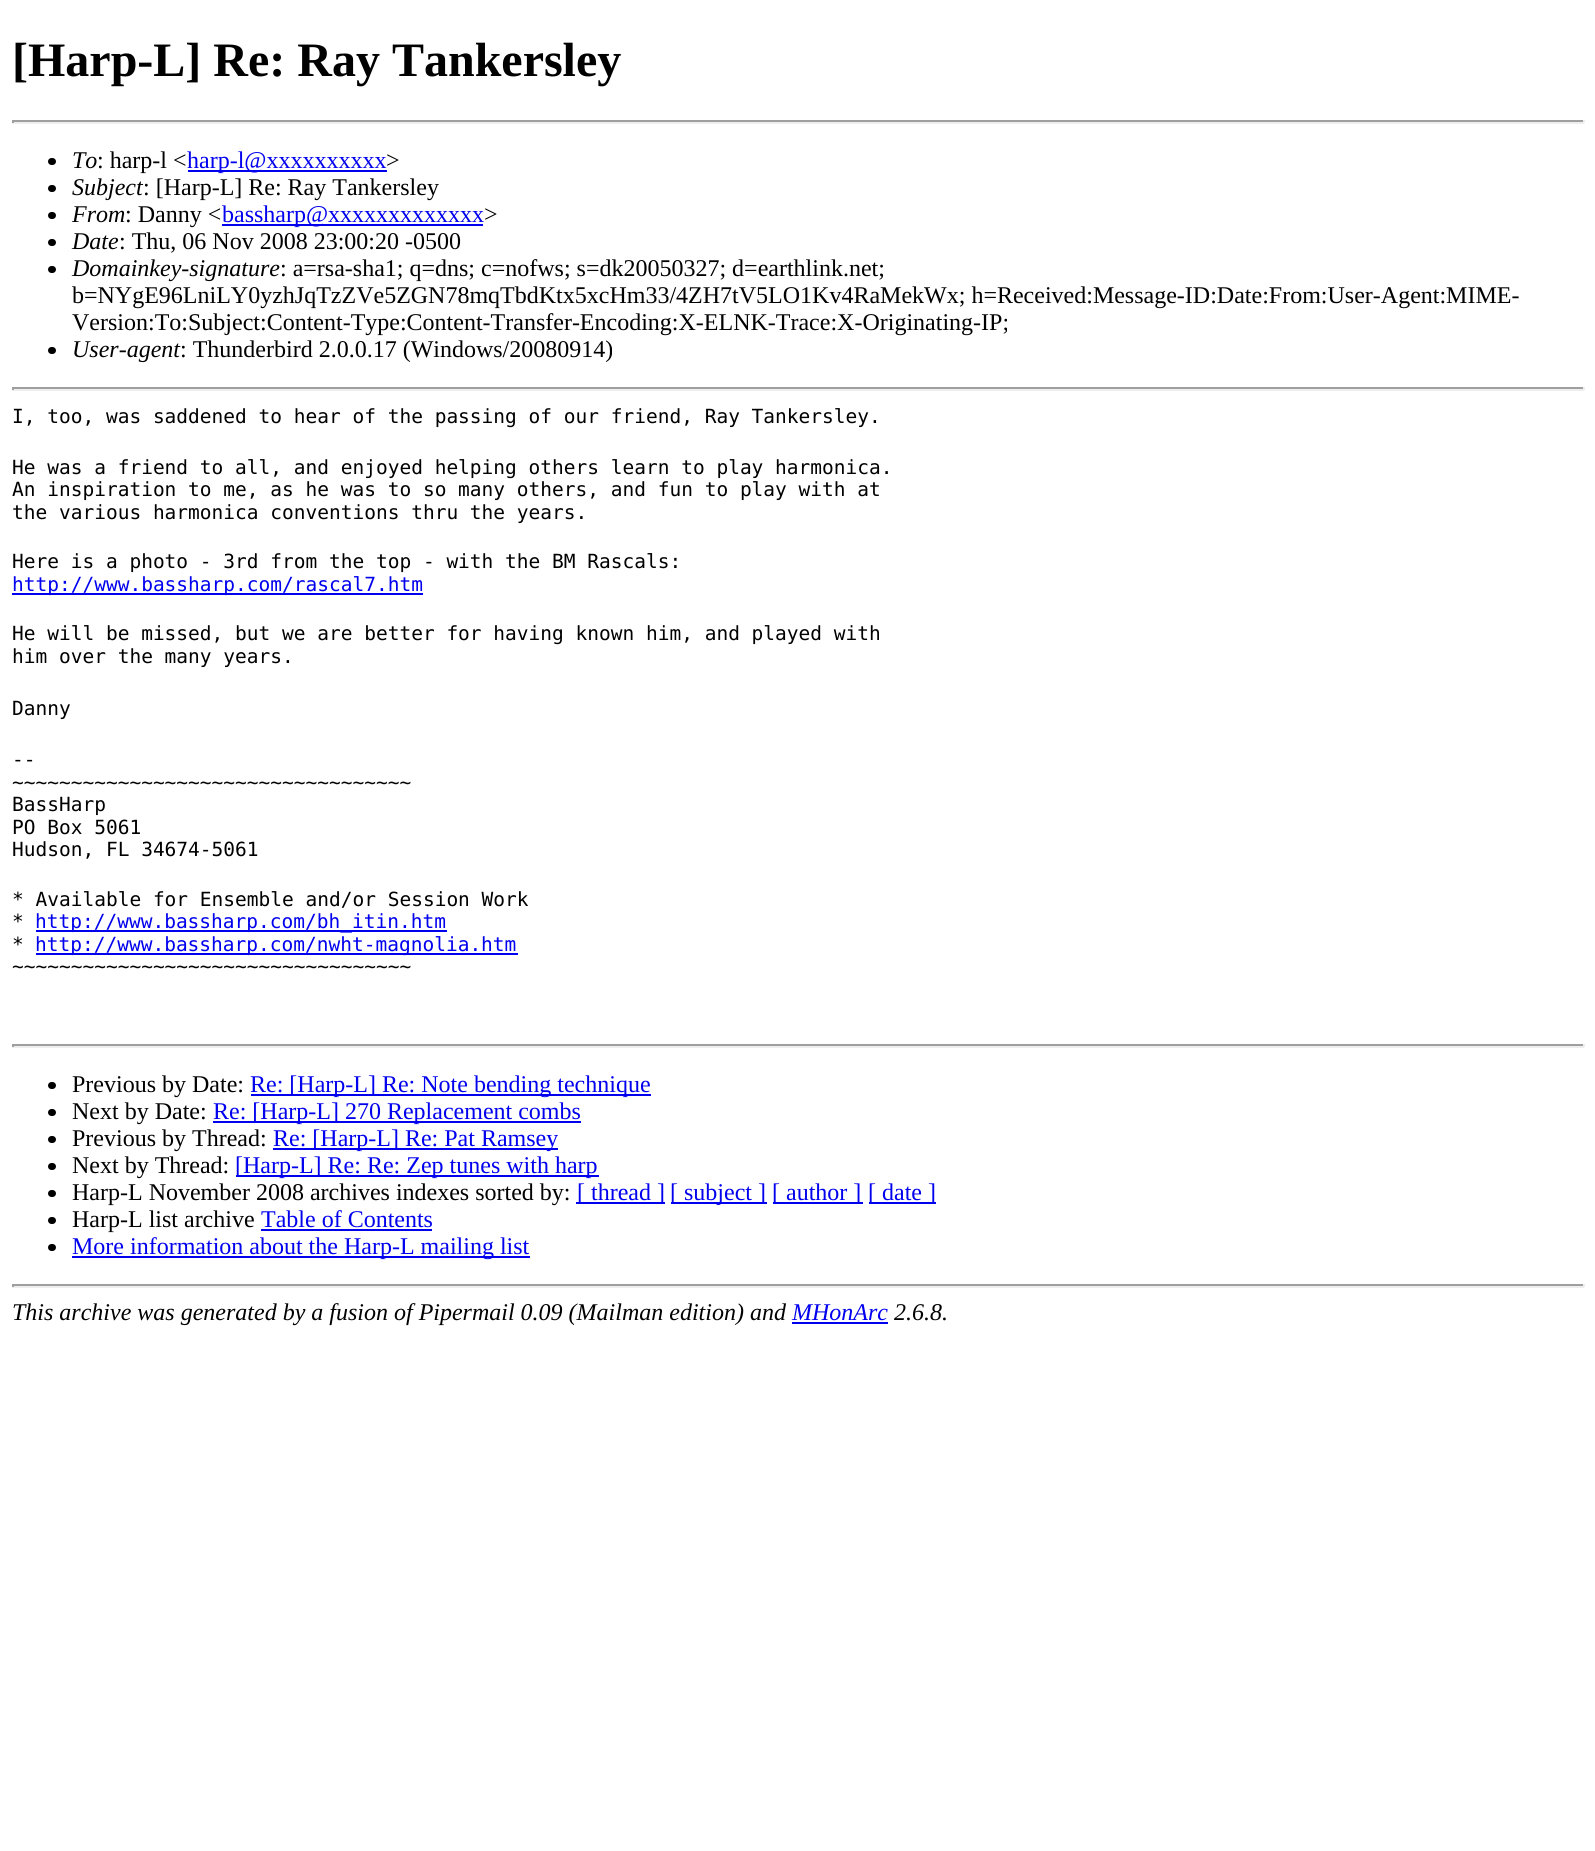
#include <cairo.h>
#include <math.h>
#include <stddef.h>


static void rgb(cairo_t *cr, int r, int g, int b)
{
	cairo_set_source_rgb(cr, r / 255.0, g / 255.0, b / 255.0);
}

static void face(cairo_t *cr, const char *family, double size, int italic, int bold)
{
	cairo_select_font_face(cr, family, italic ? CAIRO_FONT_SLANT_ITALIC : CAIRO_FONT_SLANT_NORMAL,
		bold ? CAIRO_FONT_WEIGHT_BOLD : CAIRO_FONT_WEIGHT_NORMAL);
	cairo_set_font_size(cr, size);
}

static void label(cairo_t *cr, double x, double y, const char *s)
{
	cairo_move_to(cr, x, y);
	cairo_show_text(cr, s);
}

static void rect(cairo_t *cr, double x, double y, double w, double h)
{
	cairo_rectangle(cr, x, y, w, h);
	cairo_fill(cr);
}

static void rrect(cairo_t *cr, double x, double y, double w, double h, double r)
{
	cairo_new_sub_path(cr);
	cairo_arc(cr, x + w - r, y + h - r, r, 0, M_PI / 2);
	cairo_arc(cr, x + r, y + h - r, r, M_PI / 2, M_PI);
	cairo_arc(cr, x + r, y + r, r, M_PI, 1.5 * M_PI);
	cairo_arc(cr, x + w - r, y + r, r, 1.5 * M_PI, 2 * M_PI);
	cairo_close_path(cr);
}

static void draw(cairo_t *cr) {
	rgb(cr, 255, 255, 255);
	cairo_paint(cr);
	face(cr, "Liberation Serif", 48, 0, 1);
	rgb(cr, 0, 0, 0);
	label(cr, 12, 76, "[Harp-L] Re: Ray Tankersley");
	rgb(cr, 159, 159, 159);
	rect(cr, 12, 120, 1572, 2);
	rgb(cr, 238, 238, 238);
	rect(cr, 1583, 120, 2, 3);
	rect(cr, 12, 122, 1572, 2);
	rgb(cr, 159, 159, 159);
	rect(cr, 12, 120, 2, 3);
	rgb(cr, 0, 0, 0);
	rrect(cr, 48, 158, 8, 7, 3.5);
	cairo_fill(cr);
	face(cr, "Liberation Serif", 24, 1, 0);
	label(cr, 72, 168, "To");
	face(cr, "Liberation Serif", 24, 0, 0);
	label(cr, 97, 168, ": harp-l <");
	rgb(cr, 0, 0, 238);
	rect(cr, 188, 170, 199, 2);
	label(cr, 187, 168, "harp-l@xxxxxxxxxx");
	rgb(cr, 0, 0, 0);
	label(cr, 386, 168, ">");
	rrect(cr, 48, 185, 8, 7, 3.5);
	cairo_fill(cr);
	face(cr, "Liberation Serif", 24, 1, 0);
	label(cr, 72, 195, "Subject");
	face(cr, "Liberation Serif", 24, 0, 0);
	label(cr, 143, 195, ": [Harp-L] Re: Ray Tankersley");
	rrect(cr, 48, 212, 8, 7, 3.5);
	cairo_fill(cr);
	face(cr, "Liberation Serif", 24, 1, 0);
	label(cr, 72, 222, "From");
	face(cr, "Liberation Serif", 24, 0, 0);
	label(cr, 125, 222, ": Danny <");
	rgb(cr, 0, 0, 238);
	rect(cr, 222, 224, 261, 2);
	label(cr, 222, 222, "bassharp@xxxxxxxxxxxxx");
	rgb(cr, 0, 0, 0);
	label(cr, 484, 222, ">");
	rrect(cr, 48, 239, 8, 7, 3.5);
	cairo_fill(cr);
	face(cr, "Liberation Serif", 24, 1, 0);
	label(cr, 72, 249, "Date");
	face(cr, "Liberation Serif", 24, 0, 0);
	label(cr, 119, 249, ": Thu, 06 Nov 2008 23:00:20 -0500");
	rrect(cr, 48, 266, 8, 7, 3.5);
	cairo_fill(cr);
	face(cr, "Liberation Serif", 24, 1, 0);
	label(cr, 72, 276, "Domainkey-signature");
	face(cr, "Liberation Serif", 24, 0, 0);
	label(cr, 280, 276, ": a=rsa-sha1; q=dns; c=nofws; s=dk20050327; d=earthlink.net;");
	label(cr, 72, 303, "b=NYgE96LniLY0yzhJqTzZVe5ZGN78mqTbdKtx5xcHm33/4ZH7tV5LO1Kv4RaMekWx; h=Received:Message-ID:Date:From:User-Agent:MIME-");
	label(cr, 72, 330, "Version:To:Subject:Content-Type:Content-Transfer-Encoding:X-ELNK-Trace:X-Originating-IP;");
	rrect(cr, 48, 347, 8, 7, 3.5);
	cairo_fill(cr);
	face(cr, "Liberation Serif", 24, 1, 0);
	label(cr, 72, 357, "User-agent");
	face(cr, "Liberation Serif", 24, 0, 0);
	label(cr, 180, 357, ": Thunderbird 2.0.0.17 (Windows/20080914)");
	rgb(cr, 159, 159, 159);
	rect(cr, 12, 387, 1572, 2);
	rgb(cr, 238, 238, 238);
	rect(cr, 1583, 387, 2, 3);
	rect(cr, 12, 389, 1572, 2);
	rgb(cr, 159, 159, 159);
	rect(cr, 12, 387, 2, 3);
	face(cr, "DejaVu Sans Mono", 19.5, 0, 0);
	rgb(cr, 0, 0, 0);
	label(cr, 12, 423, "I, too, was saddened to hear of the passing of our friend, Ray Tankersley.");
	label(cr, 12, 474, "He was a friend to all, and enjoyed helping others learn to play harmonica.");
	label(cr, 12, 496, "An inspiration to me, as he was to so many others, and fun to play with at");
	label(cr, 12, 519, "the various harmonica conventions thru the years.");
	label(cr, 12, 568, "Here is a photo - 3rd from the top - with the BM Rascals:");
	rgb(cr, 0, 0, 238);
	rect(cr, 12, 593, 411, 2);
	label(cr, 12, 591, "http://www.bassharp.com/rascal7.htm");
	rgb(cr, 0, 0, 0);
	label(cr, 12, 640, "He will be missed, but we are better for having known him, and played with");
	label(cr, 12, 663, "him over the many years.");
	label(cr, 12, 715, "Danny");
	label(cr, 12, 766, "--");
	label(cr, 12, 789, "~~~~~~~~~~~~~~~~~~~~~~~~~~~~~~~~~~");
	label(cr, 12, 811, "BassHarp");
	label(cr, 12, 834, "PO Box 5061");
	label(cr, 12, 856, "Hudson, FL 34674-5061");
	label(cr, 12, 906, "* Available for Ensemble and/or Session Work");
	label(cr, 12, 928, "*");
	rgb(cr, 0, 0, 238);
	rect(cr, 36, 930, 411, 2);
	label(cr, 35, 928, "http://www.bassharp.com/bh_itin.htm");
	rgb(cr, 0, 0, 0);
	label(cr, 12, 951, "*");
	rgb(cr, 0, 0, 238);
	rect(cr, 36, 953, 482, 2);
	label(cr, 35, 951, "http://www.bassharp.com/nwht-magnolia.htm");
	rgb(cr, 0, 0, 0);
	label(cr, 12, 973, "~~~~~~~~~~~~~~~~~~~~~~~~~~~~~~~~~~");
	rgb(cr, 159, 159, 159);
	rect(cr, 12, 1044, 1572, 2);
	rgb(cr, 238, 238, 238);
	rect(cr, 1583, 1044, 2, 3);
	rect(cr, 12, 1046, 1572, 2);
	rgb(cr, 159, 159, 159);
	rect(cr, 12, 1044, 2, 3);
	rgb(cr, 0, 0, 0);
	rrect(cr, 48, 1082, 8, 7, 3.5);
	cairo_fill(cr);
	face(cr, "Liberation Serif", 24, 0, 0);
	label(cr, 72, 1092, "Previous by Date:");
	rgb(cr, 0, 0, 238);
	rect(cr, 251, 1094, 400, 2);
	label(cr, 250, 1092, "Re: [Harp-L] Re: Note bending technique");
	rgb(cr, 0, 0, 0);
	rrect(cr, 48, 1109, 8, 7, 3.5);
	cairo_fill(cr);
	label(cr, 72, 1119, "Next by Date:");
	rgb(cr, 0, 0, 238);
	rect(cr, 213, 1121, 368, 2);
	label(cr, 213, 1119, "Re: [Harp-L] 270 Replacement combs");
	rgb(cr, 0, 0, 0);
	rrect(cr, 48, 1136, 8, 7, 3.5);
	cairo_fill(cr);
	label(cr, 72, 1146, "Previous by Thread:");
	rgb(cr, 0, 0, 238);
	rect(cr, 273, 1148, 285, 2);
	label(cr, 273, 1146, "Re: [Harp-L] Re: Pat Ramsey");
	rgb(cr, 0, 0, 0);
	rrect(cr, 48, 1163, 8, 7, 3.5);
	cairo_fill(cr);
	label(cr, 72, 1173, "Next by Thread:");
	rgb(cr, 0, 0, 238);
	rect(cr, 236, 1175, 363, 2);
	label(cr, 235, 1173, "[Harp-L] Re: Re: Zep tunes with harp");
	rgb(cr, 0, 0, 0);
	rrect(cr, 48, 1190, 8, 7, 3.5);
	cairo_fill(cr);
	label(cr, 72, 1200, "Harp-L November 2008 archives indexes sorted by:");
	rgb(cr, 0, 0, 238);
	rect(cr, 576, 1202, 89, 2);
	label(cr, 577, 1200, "[ thread ]");
	rect(cr, 671, 1202, 96, 2);
	label(cr, 670, 1200, "[ subject ]");
	rect(cr, 773, 1202, 90, 2);
	label(cr, 772, 1200, "[ author ]");
	rect(cr, 869, 1202, 67, 2);
	label(cr, 868, 1200, "[ date ]");
	rgb(cr, 0, 0, 0);
	rrect(cr, 48, 1217, 8, 7, 3.5);
	cairo_fill(cr);
	label(cr, 72, 1227, "Harp-L list archive");
	rgb(cr, 0, 0, 238);
	label(cr, 261, 1227, "Table of Contents");
	rect(cr, 261, 1229, 171, 2);
	rgb(cr, 0, 0, 0);
	rrect(cr, 48, 1244, 8, 7, 3.5);
	cairo_fill(cr);
	rgb(cr, 0, 0, 238);
	rect(cr, 72, 1256, 458, 2);
	label(cr, 72, 1254, "More information about the Harp-L mailing list");
	rgb(cr, 159, 159, 159);
	rect(cr, 12, 1284, 1572, 2);
	rgb(cr, 238, 238, 238);
	rect(cr, 1583, 1284, 2, 3);
	rect(cr, 12, 1286, 1572, 2);
	rgb(cr, 159, 159, 159);
	rect(cr, 12, 1284, 2, 3);
	face(cr, "Liberation Serif", 24, 1, 0);
	rgb(cr, 0, 0, 0);
	label(cr, 12, 1320, "This archive was generated by a fusion of Pipermail 0.09 (Mailman edition) and");
	rgb(cr, 0, 0, 238);
	label(cr, 792, 1320, "MHonArc");
	rect(cr, 792, 1322, 96, 2);
	rgb(cr, 0, 0, 0);
	label(cr, 894, 1320, "2.6.8.");
}

int main(void) {
	cairo_surface_t *surface = cairo_image_surface_create(CAIRO_FORMAT_RGB24, 1595, 1851);
	cairo_t *cr = cairo_create(surface);
	cairo_font_options_t *options = cairo_font_options_create();
	cairo_font_options_set_hint_metrics(options, CAIRO_HINT_METRICS_OFF);
	cairo_font_options_set_hint_style(options, CAIRO_HINT_STYLE_NONE);
	cairo_set_font_options(cr, options);
	cairo_set_miter_limit(cr, 4);
	draw(cr);
	cairo_surface_write_to_png(surface, "render.png");
	cairo_font_options_destroy(options);
	cairo_destroy(cr);
	cairo_surface_destroy(surface);
	return 0;
}
